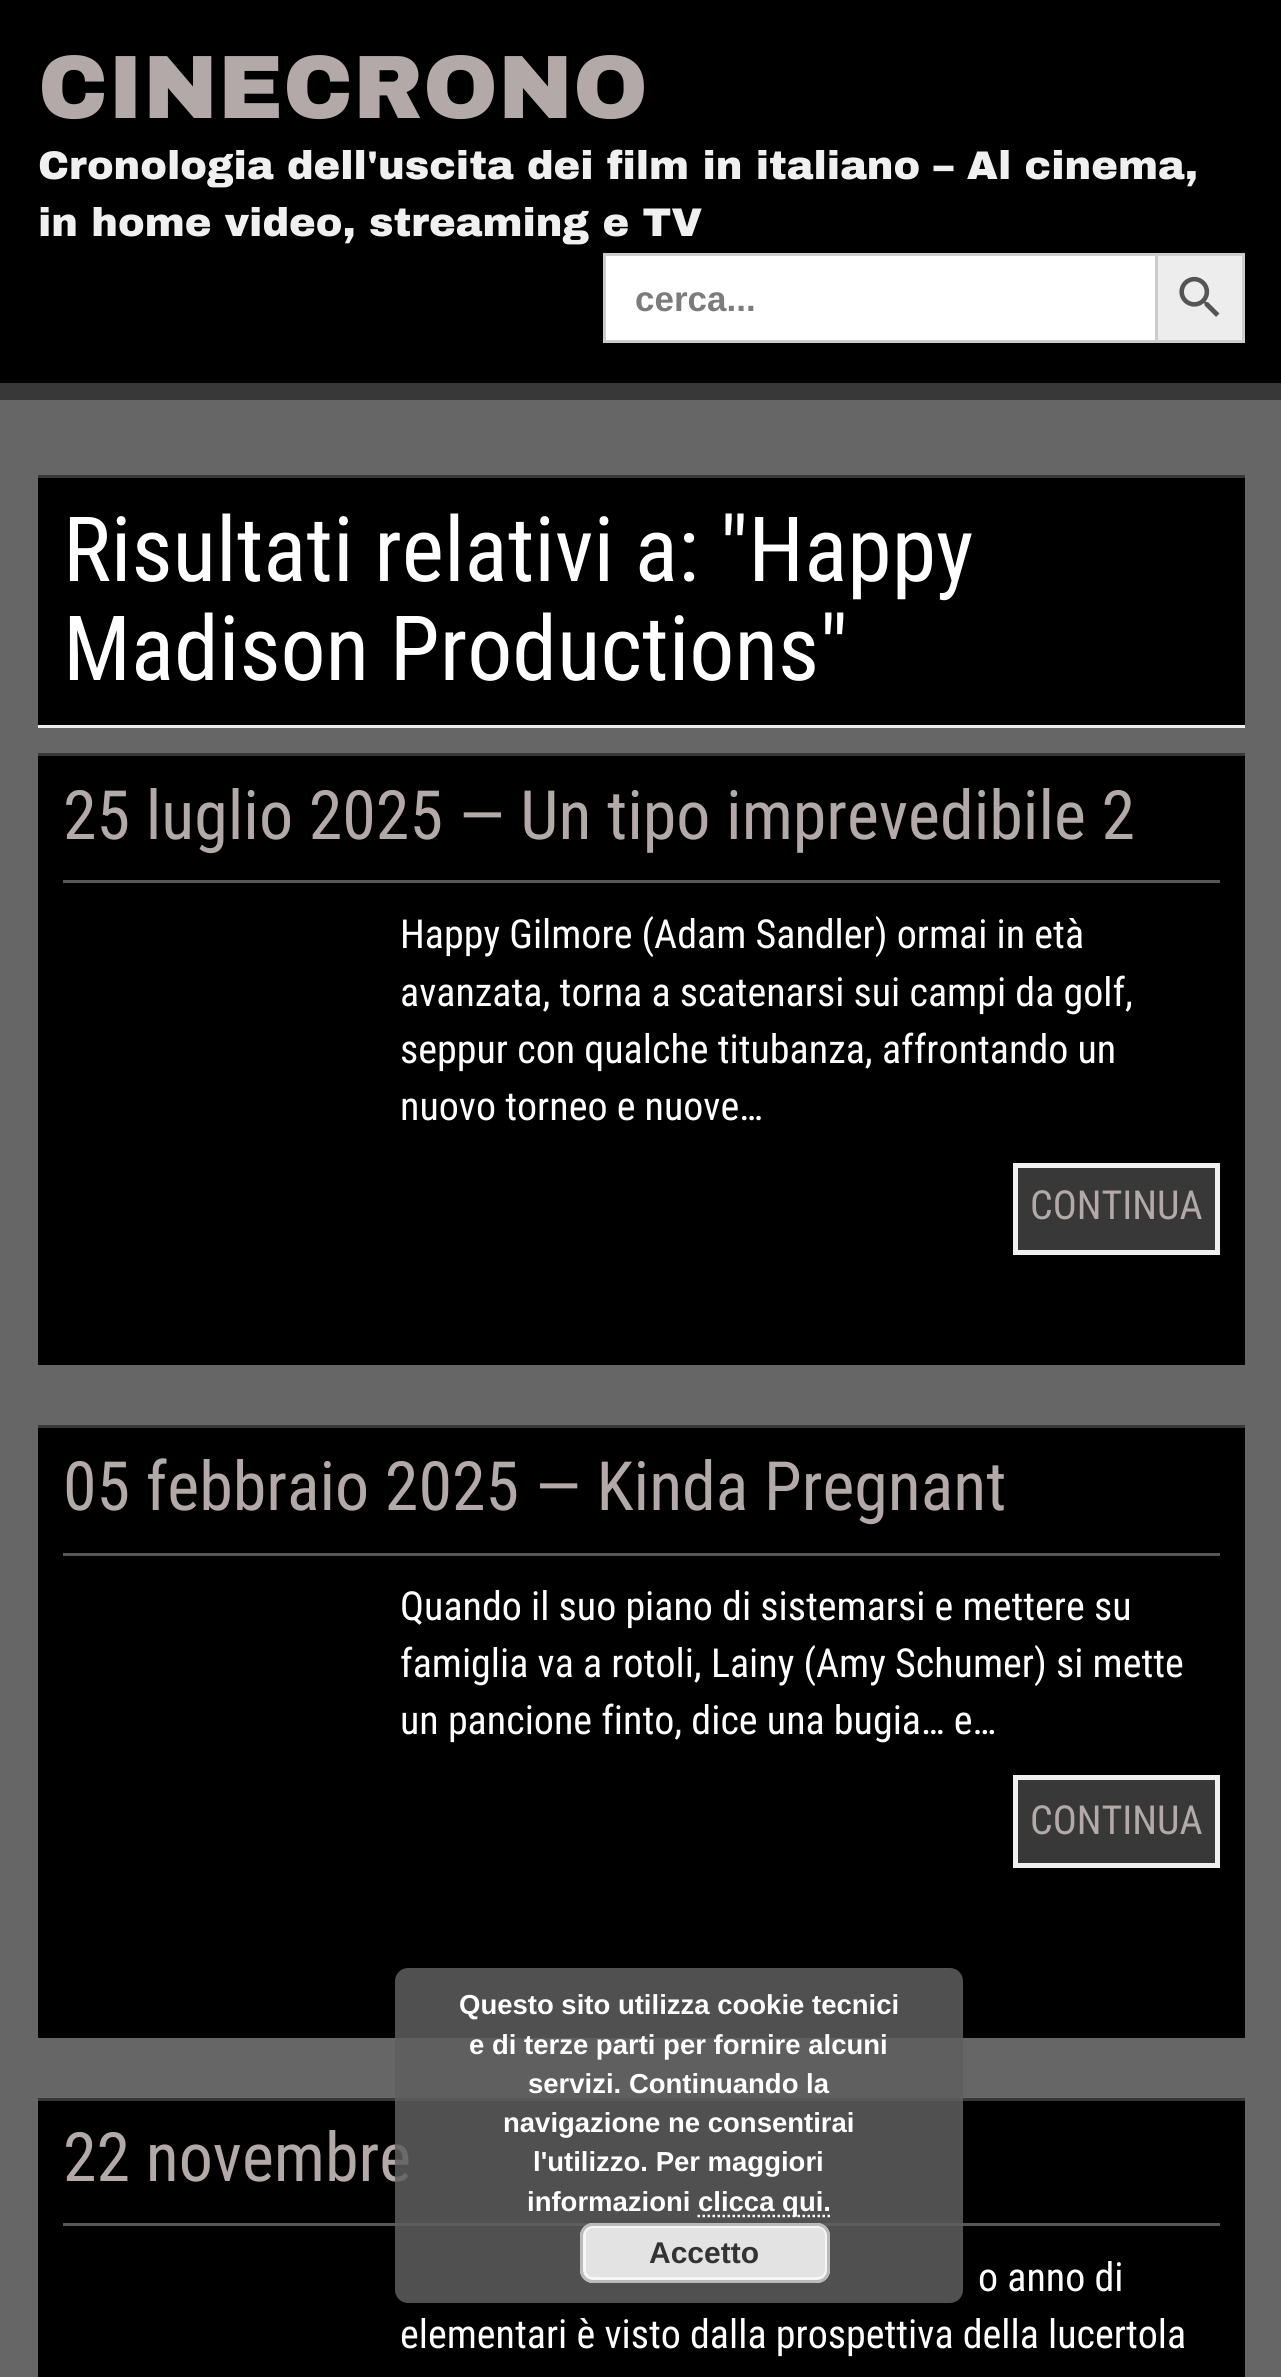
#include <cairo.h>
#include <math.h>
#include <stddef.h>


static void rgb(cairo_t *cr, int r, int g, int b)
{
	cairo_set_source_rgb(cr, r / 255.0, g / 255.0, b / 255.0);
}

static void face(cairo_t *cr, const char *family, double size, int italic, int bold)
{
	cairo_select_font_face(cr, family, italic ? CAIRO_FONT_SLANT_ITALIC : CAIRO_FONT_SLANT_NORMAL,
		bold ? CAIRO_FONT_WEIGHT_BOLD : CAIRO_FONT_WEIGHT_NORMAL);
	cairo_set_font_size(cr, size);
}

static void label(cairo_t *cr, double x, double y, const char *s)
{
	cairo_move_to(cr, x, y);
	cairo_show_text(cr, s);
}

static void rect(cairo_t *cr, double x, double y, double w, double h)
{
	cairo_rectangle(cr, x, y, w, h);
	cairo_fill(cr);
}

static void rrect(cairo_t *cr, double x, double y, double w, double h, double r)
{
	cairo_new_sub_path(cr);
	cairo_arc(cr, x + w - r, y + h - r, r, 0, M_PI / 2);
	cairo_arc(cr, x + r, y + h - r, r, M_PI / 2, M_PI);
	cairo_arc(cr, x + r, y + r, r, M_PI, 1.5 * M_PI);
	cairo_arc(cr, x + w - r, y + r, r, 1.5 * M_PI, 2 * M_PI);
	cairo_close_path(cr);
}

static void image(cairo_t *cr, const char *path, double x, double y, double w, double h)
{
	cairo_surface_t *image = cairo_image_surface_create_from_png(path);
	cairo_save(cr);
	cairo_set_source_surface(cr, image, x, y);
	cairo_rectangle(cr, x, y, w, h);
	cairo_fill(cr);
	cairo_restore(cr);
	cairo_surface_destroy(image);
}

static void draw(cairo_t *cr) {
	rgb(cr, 102, 102, 102);
	cairo_paint(cr);
	rgb(cr, 0, 0, 0);
	rect(cr, 0, 0, 1281, 383);
	rgb(cr, 56, 56, 56);
	rect(cr, 0, 383, 1281, 17);
	face(cr, "Archivo Black Black", 90, 0, 0);
	rgb(cr, 179, 169, 169);
	label(cr, 38, 118, "CINECRONO");
	face(cr, "Archivo Black Black", 40, 0, 0);
	rgb(cr, 240, 240, 240);
	label(cr, 38, 179, "Cronologia dell'uscita dei film in italiano – Al cinema,");
	label(cr, 38, 236, "in home video, streaming e TV");
	rgb(cr, 255, 255, 255);
	rect(cr, 606, 256, 549, 84);
	rgb(cr, 204, 204, 204);
	rect(cr, 603, 253, 552, 3);
	rect(cr, 603, 340, 552, 3);
	rect(cr, 603, 253, 3, 90);
	face(cr, "Liberation Sans", 35, 0, 1);
	rgb(cr, 124, 124, 124);
	label(cr, 635, 311, "cerca...");
	rgb(cr, 237, 237, 237);
	cairo_rectangle(cr, 1156.5, 254.5, 87, 87);
	cairo_fill_preserve(cr);
	rgb(cr, 204, 204, 204);
	cairo_set_line_width(cr, 3);
	cairo_stroke(cr);
	image(cr, "image0.png", 1179, 276, 41, 41);
	rgb(cr, 0, 0, 0);
	rect(cr, 38, 478, 1207, 247);
	rgb(cr, 56, 56, 56);
	rect(cr, 38, 475, 1207, 3);
	rgb(cr, 238, 238, 238);
	rect(cr, 38, 725, 1207, 3);
	face(cr, "Roboto Condensed", 90, 0, 0);
	rgb(cr, 255, 255, 255);
	label(cr, 63, 581, "Risultati relativi a: \"Happy");
	label(cr, 63, 680, "Madison Productions\"");
	rgb(cr, 0, 0, 0);
	rect(cr, 38, 756, 1207, 609);
	rgb(cr, 56, 56, 56);
	rect(cr, 38, 753, 1207, 3);
	rgb(cr, 87, 87, 87);
	rect(cr, 63, 880, 1157, 3);
	face(cr, "Roboto Condensed", 68, 0, 0);
	rgb(cr, 179, 169, 169);
	label(cr, 63, 839, "25 luglio 2025 — Un tipo imprevedibile 2");
	face(cr, "Roboto Condensed", 40, 0, 0);
	rgb(cr, 255, 255, 255);
	label(cr, 400, 948, "Happy Gilmore (Adam Sandler) ormai in età");
	label(cr, 400, 1006, "avanzata, torna a scatenarsi sui campi da golf,");
	label(cr, 400, 1063, "seppur con qualche titubanza, affrontando un");
	label(cr, 400, 1120, "nuovo torneo e nuove…");
	rgb(cr, 56, 56, 56);
	cairo_rectangle(cr, 1015.5, 1165.5, 202, 87);
	cairo_fill_preserve(cr);
	rgb(cr, 240, 240, 240);
	cairo_set_line_width(cr, 5);
	cairo_stroke(cr);
	rgb(cr, 179, 169, 169);
	label(cr, 1030, 1219, "CONTINUA");
	rgb(cr, 0, 0, 0);
	rect(cr, 38, 1428, 1207, 610);
	rgb(cr, 56, 56, 56);
	rect(cr, 38, 1425, 1207, 3);
	rgb(cr, 87, 87, 87);
	rect(cr, 63, 1553, 1157, 3);
	face(cr, "Roboto Condensed", 68, 0, 0);
	rgb(cr, 179, 169, 169);
	label(cr, 63, 1510, "05 febbraio 2025 — Kinda Pregnant");
	face(cr, "Roboto Condensed", 40, 0, 0);
	rgb(cr, 255, 255, 255);
	label(cr, 400, 1620, "Quando il suo piano di sistemarsi e mettere su");
	label(cr, 400, 1677, "famiglia va a rotoli, Lainy (Amy Schumer) si mette");
	label(cr, 400, 1734, "un pancione finto, dice una bugia… e…");
	rgb(cr, 56, 56, 56);
	cairo_rectangle(cr, 1015.5, 1777.5, 202, 88);
	cairo_fill_preserve(cr);
	rgb(cr, 240, 240, 240);
	cairo_stroke(cr);
	rgb(cr, 179, 169, 169);
	label(cr, 1030, 1834, "CONTINUA");
	rgb(cr, 0, 0, 0);
	rect(cr, 38, 2101, 1207, 276);
	rgb(cr, 56, 56, 56);
	rect(cr, 38, 2098, 1207, 3);
	rgb(cr, 87, 87, 87);
	rect(cr, 63, 2223, 1157, 3);
	face(cr, "Roboto Condensed", 68, 0, 0);
	rgb(cr, 179, 169, 169);
	label(cr, 63, 2181, "22 novembre");
	face(cr, "Roboto Condensed", 40, 0, 0);
	rgb(cr, 255, 255, 255);
	label(cr, 978, 2291, "o anno di");
	label(cr, 400, 2348, "elementari è visto dalla prospettiva della lucertola");
	cairo_set_source_rgba(cr, 0.369, 0.369, 0.369, 0.85);
	rrect(cr, 395, 1968, 568, 335, 13);
	cairo_fill(cr);
	face(cr, "Liberation Sans", 27.5, 0, 1);
	rgb(cr, 255, 255, 255);
	label(cr, 459, 2014, "Questo sito utilizza cookie tecnici");
	label(cr, 469, 2054, "e di terze parti per fornire alcuni");
	label(cr, 528, 2093, "servizi. Continuando la");
	label(cr, 503, 2132, "navigazione ne consentirai");
	label(cr, 533, 2171, "l'utilizzo. Per maggiori");
	label(cr, 527, 2211, "informazioni");
	cairo_new_path(cr);
	cairo_move_to(cr, 697.5, 2216);
	cairo_line_to(cr, 830, 2216);
	cairo_set_line_width(cr, 2.5);
	cairo_set_dash(cr, (double[]){2.5, 2.5}, 2, 0);
	cairo_stroke(cr);
	label(cr, 698, 2211, "clicca qui.");
	rgb(cr, 227, 227, 227);
	rrect(cr, 580, 2223, 250, 60, 13);
	cairo_fill(cr);
	rrect(cr, 584.5, 2226.5, 242, 52, 8.5);
	rgb(cr, 246, 246, 246);
	cairo_set_line_width(cr, 3);
	cairo_set_dash(cr, NULL, 0, 0);
	cairo_stroke(cr);
	rrect(cr, 581.5, 2224.5, 247, 57, 11.5);
	rgb(cr, 187, 187, 187);
	cairo_stroke(cr);
	face(cr, "Liberation Sans", 30, 0, 1);
	rgb(cr, 51, 51, 51);
	label(cr, 649, 2263, "Accetto");
}

int main(void) {
	cairo_surface_t *surface = cairo_image_surface_create(CAIRO_FORMAT_RGB24, 1281, 2377);
	cairo_t *cr = cairo_create(surface);
	cairo_font_options_t *options = cairo_font_options_create();
	cairo_font_options_set_hint_metrics(options, CAIRO_HINT_METRICS_OFF);
	cairo_font_options_set_hint_style(options, CAIRO_HINT_STYLE_NONE);
	cairo_set_font_options(cr, options);
	cairo_set_miter_limit(cr, 4);
	draw(cr);
	cairo_surface_write_to_png(surface, "render.png");
	cairo_font_options_destroy(options);
	cairo_destroy(cr);
	cairo_surface_destroy(surface);
	return 0;
}
